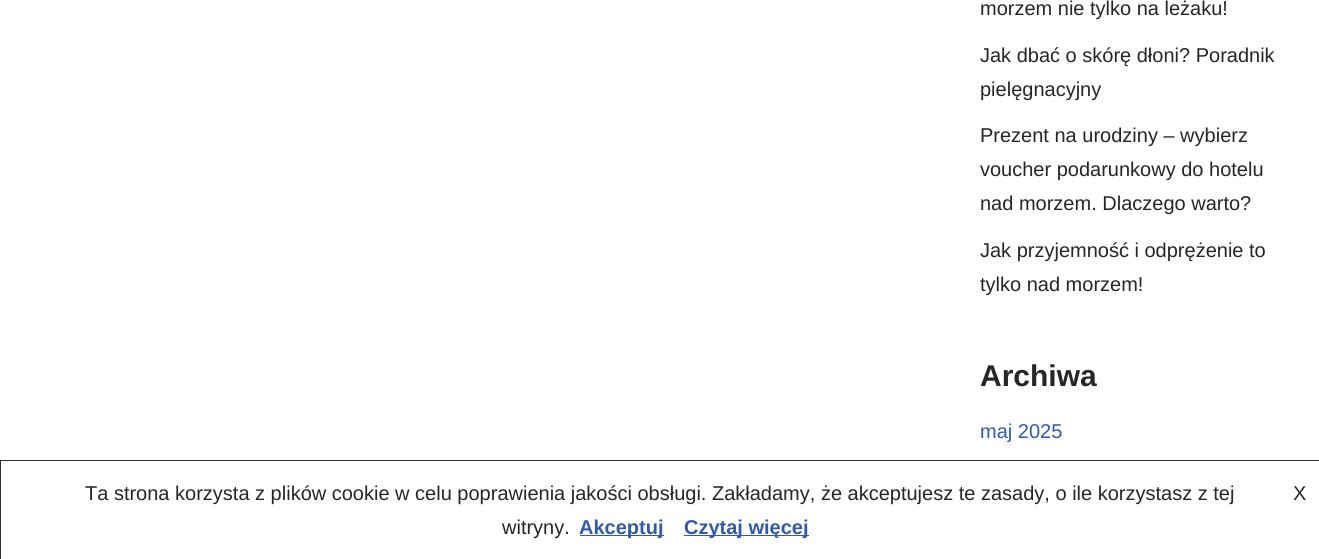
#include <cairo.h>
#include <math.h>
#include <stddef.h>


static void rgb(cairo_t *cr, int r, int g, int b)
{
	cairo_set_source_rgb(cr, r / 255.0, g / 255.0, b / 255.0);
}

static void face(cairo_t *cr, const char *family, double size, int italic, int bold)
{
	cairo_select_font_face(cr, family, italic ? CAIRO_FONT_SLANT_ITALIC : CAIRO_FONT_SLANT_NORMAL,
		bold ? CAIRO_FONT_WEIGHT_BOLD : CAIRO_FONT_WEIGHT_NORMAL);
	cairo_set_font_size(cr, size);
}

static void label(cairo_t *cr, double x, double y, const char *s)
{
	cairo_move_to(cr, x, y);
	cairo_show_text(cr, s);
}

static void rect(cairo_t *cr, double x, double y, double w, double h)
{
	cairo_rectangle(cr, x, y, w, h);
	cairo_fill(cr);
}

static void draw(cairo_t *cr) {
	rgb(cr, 255, 255, 255);
	cairo_paint(cr);
	face(cr, "Liberation Sans", 20, 0, 0);
	rgb(cr, 39, 38, 38);
	label(cr, 980, 15, "morzem nie tylko na leżaku!");
	label(cr, 980, 62, "Jak dbać o skórę dłoni? Poradnik");
	label(cr, 980, 96, "pielęgnacyjny");
	label(cr, 980, 142, "Prezent na urodziny – wybierz");
	label(cr, 980, 176, "voucher podarunkowy do hotelu");
	label(cr, 980, 210, "nad morzem. Dlaczego warto?");
	label(cr, 980, 257, "Jak przyjemność i odprężenie to");
	label(cr, 980, 291, "tylko nad morzem!");
	face(cr, "Liberation Sans", 30, 0, 1);
	label(cr, 980, 386, "Archiwa");
	face(cr, "Liberation Sans", 20, 0, 0);
	rgb(cr, 47, 90, 174);
	label(cr, 980, 438, "maj 2025");
	cairo_rectangle(cr, 0.5, 460.5, 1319, 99);
	rgb(cr, 51, 51, 51);
	cairo_set_line_width(cr, 1);
	cairo_stroke(cr);
	rgb(cr, 39, 38, 38);
	label(cr, 85, 500, "Ta strona korzysta z plików cookie w celu poprawienia jakości obsługi. Zakładamy, że akceptujesz te zasady, o ile korzystasz z tej");
	label(cr, 1293, 500, "X");
	label(cr, 502, 534, "witryny.");
	rgb(cr, 47, 90, 174);
	rect(cr, 580, 535, 84, 1);
	face(cr, "Liberation Sans", 20, 0, 1);
	label(cr, 579, 534, "Akceptuj");
	rect(cr, 684, 535, 125, 1);
	label(cr, 684, 534, "Czytaj więcej");
}

int main(void) {
	cairo_surface_t *surface = cairo_image_surface_create(CAIRO_FORMAT_RGB24, 1319, 559);
	cairo_t *cr = cairo_create(surface);
	cairo_font_options_t *options = cairo_font_options_create();
	cairo_font_options_set_hint_metrics(options, CAIRO_HINT_METRICS_OFF);
	cairo_font_options_set_hint_style(options, CAIRO_HINT_STYLE_NONE);
	cairo_set_font_options(cr, options);
	cairo_set_miter_limit(cr, 4);
	draw(cr);
	cairo_surface_write_to_png(surface, "render.png");
	cairo_font_options_destroy(options);
	cairo_destroy(cr);
	cairo_surface_destroy(surface);
	return 0;
}
